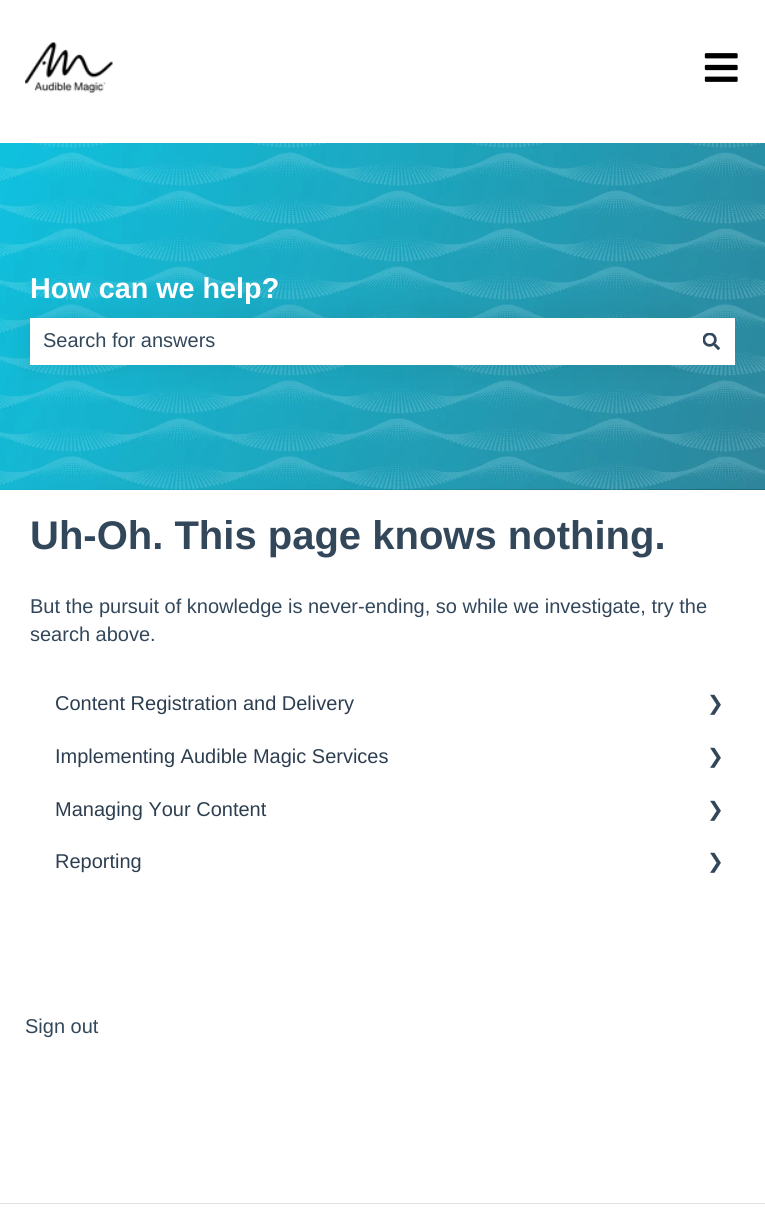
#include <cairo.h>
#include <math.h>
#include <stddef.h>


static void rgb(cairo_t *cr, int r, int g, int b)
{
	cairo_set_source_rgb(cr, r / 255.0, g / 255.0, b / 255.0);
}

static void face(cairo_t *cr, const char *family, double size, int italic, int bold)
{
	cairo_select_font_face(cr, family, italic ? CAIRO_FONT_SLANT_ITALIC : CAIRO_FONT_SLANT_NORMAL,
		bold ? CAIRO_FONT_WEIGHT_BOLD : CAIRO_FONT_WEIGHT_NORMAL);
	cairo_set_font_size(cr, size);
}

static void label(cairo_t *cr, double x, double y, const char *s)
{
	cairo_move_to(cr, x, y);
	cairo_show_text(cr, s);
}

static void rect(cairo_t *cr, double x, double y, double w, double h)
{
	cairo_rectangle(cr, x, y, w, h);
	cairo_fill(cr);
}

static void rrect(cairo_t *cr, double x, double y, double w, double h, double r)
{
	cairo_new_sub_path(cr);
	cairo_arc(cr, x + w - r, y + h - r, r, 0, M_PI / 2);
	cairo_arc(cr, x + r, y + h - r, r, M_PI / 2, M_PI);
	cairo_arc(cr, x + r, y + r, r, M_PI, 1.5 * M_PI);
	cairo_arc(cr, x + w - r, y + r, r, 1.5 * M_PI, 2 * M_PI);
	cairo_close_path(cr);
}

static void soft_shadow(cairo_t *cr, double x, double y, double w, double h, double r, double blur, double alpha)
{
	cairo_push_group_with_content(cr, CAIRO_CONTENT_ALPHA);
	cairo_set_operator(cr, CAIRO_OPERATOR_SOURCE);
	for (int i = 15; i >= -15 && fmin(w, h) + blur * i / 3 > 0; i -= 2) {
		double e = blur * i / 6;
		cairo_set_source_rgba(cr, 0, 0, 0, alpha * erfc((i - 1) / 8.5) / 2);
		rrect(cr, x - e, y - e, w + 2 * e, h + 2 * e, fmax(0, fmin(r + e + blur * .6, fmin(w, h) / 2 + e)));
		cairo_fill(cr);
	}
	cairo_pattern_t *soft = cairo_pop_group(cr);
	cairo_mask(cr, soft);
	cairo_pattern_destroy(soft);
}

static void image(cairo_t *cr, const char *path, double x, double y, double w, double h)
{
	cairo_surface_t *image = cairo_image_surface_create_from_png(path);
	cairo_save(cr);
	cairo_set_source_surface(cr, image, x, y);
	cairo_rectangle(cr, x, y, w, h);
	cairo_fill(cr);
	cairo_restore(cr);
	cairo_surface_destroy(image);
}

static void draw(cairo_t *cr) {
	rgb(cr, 255, 255, 255);
	cairo_paint(cr);
	image(cr, "image0.png", 25, 42, 88, 51);
	image(cr, "image1.png", 704, 53, 34, 29);
	image(cr, "image2.png", 0, 143, 765, 347);
	face(cr, "Liberation Sans", 28.75, 0, 1);
	rgb(cr, 255, 255, 255);
	label(cr, 30, 298, "How can we help?");
	rgb(cr, 0, 0, 0);
	soft_shadow(cr, 30, 319, 658, 47, 0, 15, 0.08);
	rgb(cr, 255, 255, 255);
	rect(cr, 30, 318, 705, 47);
	face(cr, "Liberation Sans", 20, 0, 0);
	rgb(cr, 51, 71, 91);
	label(cr, 43, 347, "Search for answers");
	image(cr, "image3.png", 703, 333, 17, 17);
	face(cr, "Liberation Sans", 40, 0, 1);
	label(cr, 30, 549, "Uh-Oh. This page knows nothing.");
	face(cr, "Liberation Sans", 20, 0, 0);
	label(cr, 30, 613, "But the pursuit of knowledge is never-ending, so while we investigate, try the");
	label(cr, 30, 641, "search above.");
	rgb(cr, 45, 62, 80);
	label(cr, 55, 710, "Content Registration and Delivery");
	face(cr, "DejaVu Sans", 20, 0, 0);
	rgb(cr, 51, 71, 91);
	label(cr, 707, 710, "❯");
	face(cr, "Liberation Sans", 20, 0, 0);
	rgb(cr, 45, 62, 80);
	label(cr, 55, 763, "Implementing Audible Magic Services");
	face(cr, "DejaVu Sans", 20, 0, 0);
	rgb(cr, 51, 71, 91);
	label(cr, 707, 763, "❯");
	face(cr, "Liberation Sans", 20, 0, 0);
	rgb(cr, 45, 62, 80);
	label(cr, 55, 816, "Managing Your Content");
	face(cr, "DejaVu Sans", 20, 0, 0);
	rgb(cr, 51, 71, 91);
	label(cr, 707, 816, "❯");
	face(cr, "Liberation Sans", 20, 0, 0);
	rgb(cr, 45, 62, 80);
	label(cr, 55, 868, "Reporting");
	face(cr, "DejaVu Sans", 20, 0, 0);
	rgb(cr, 51, 71, 91);
	label(cr, 707, 868, "❯");
	face(cr, "Liberation Sans", 20, 0, 0);
	label(cr, 25, 1033, "Sign out");
	rgb(cr, 224, 224, 224);
	rect(cr, 0, 1203, 765, 1);
}

int main(void) {
	cairo_surface_t *surface = cairo_image_surface_create(CAIRO_FORMAT_RGB24, 765, 1212);
	cairo_t *cr = cairo_create(surface);
	cairo_font_options_t *options = cairo_font_options_create();
	cairo_font_options_set_hint_metrics(options, CAIRO_HINT_METRICS_OFF);
	cairo_font_options_set_hint_style(options, CAIRO_HINT_STYLE_NONE);
	cairo_set_font_options(cr, options);
	cairo_set_miter_limit(cr, 4);
	draw(cr);
	cairo_surface_write_to_png(surface, "render.png");
	cairo_font_options_destroy(options);
	cairo_destroy(cr);
	cairo_surface_destroy(surface);
	return 0;
}
